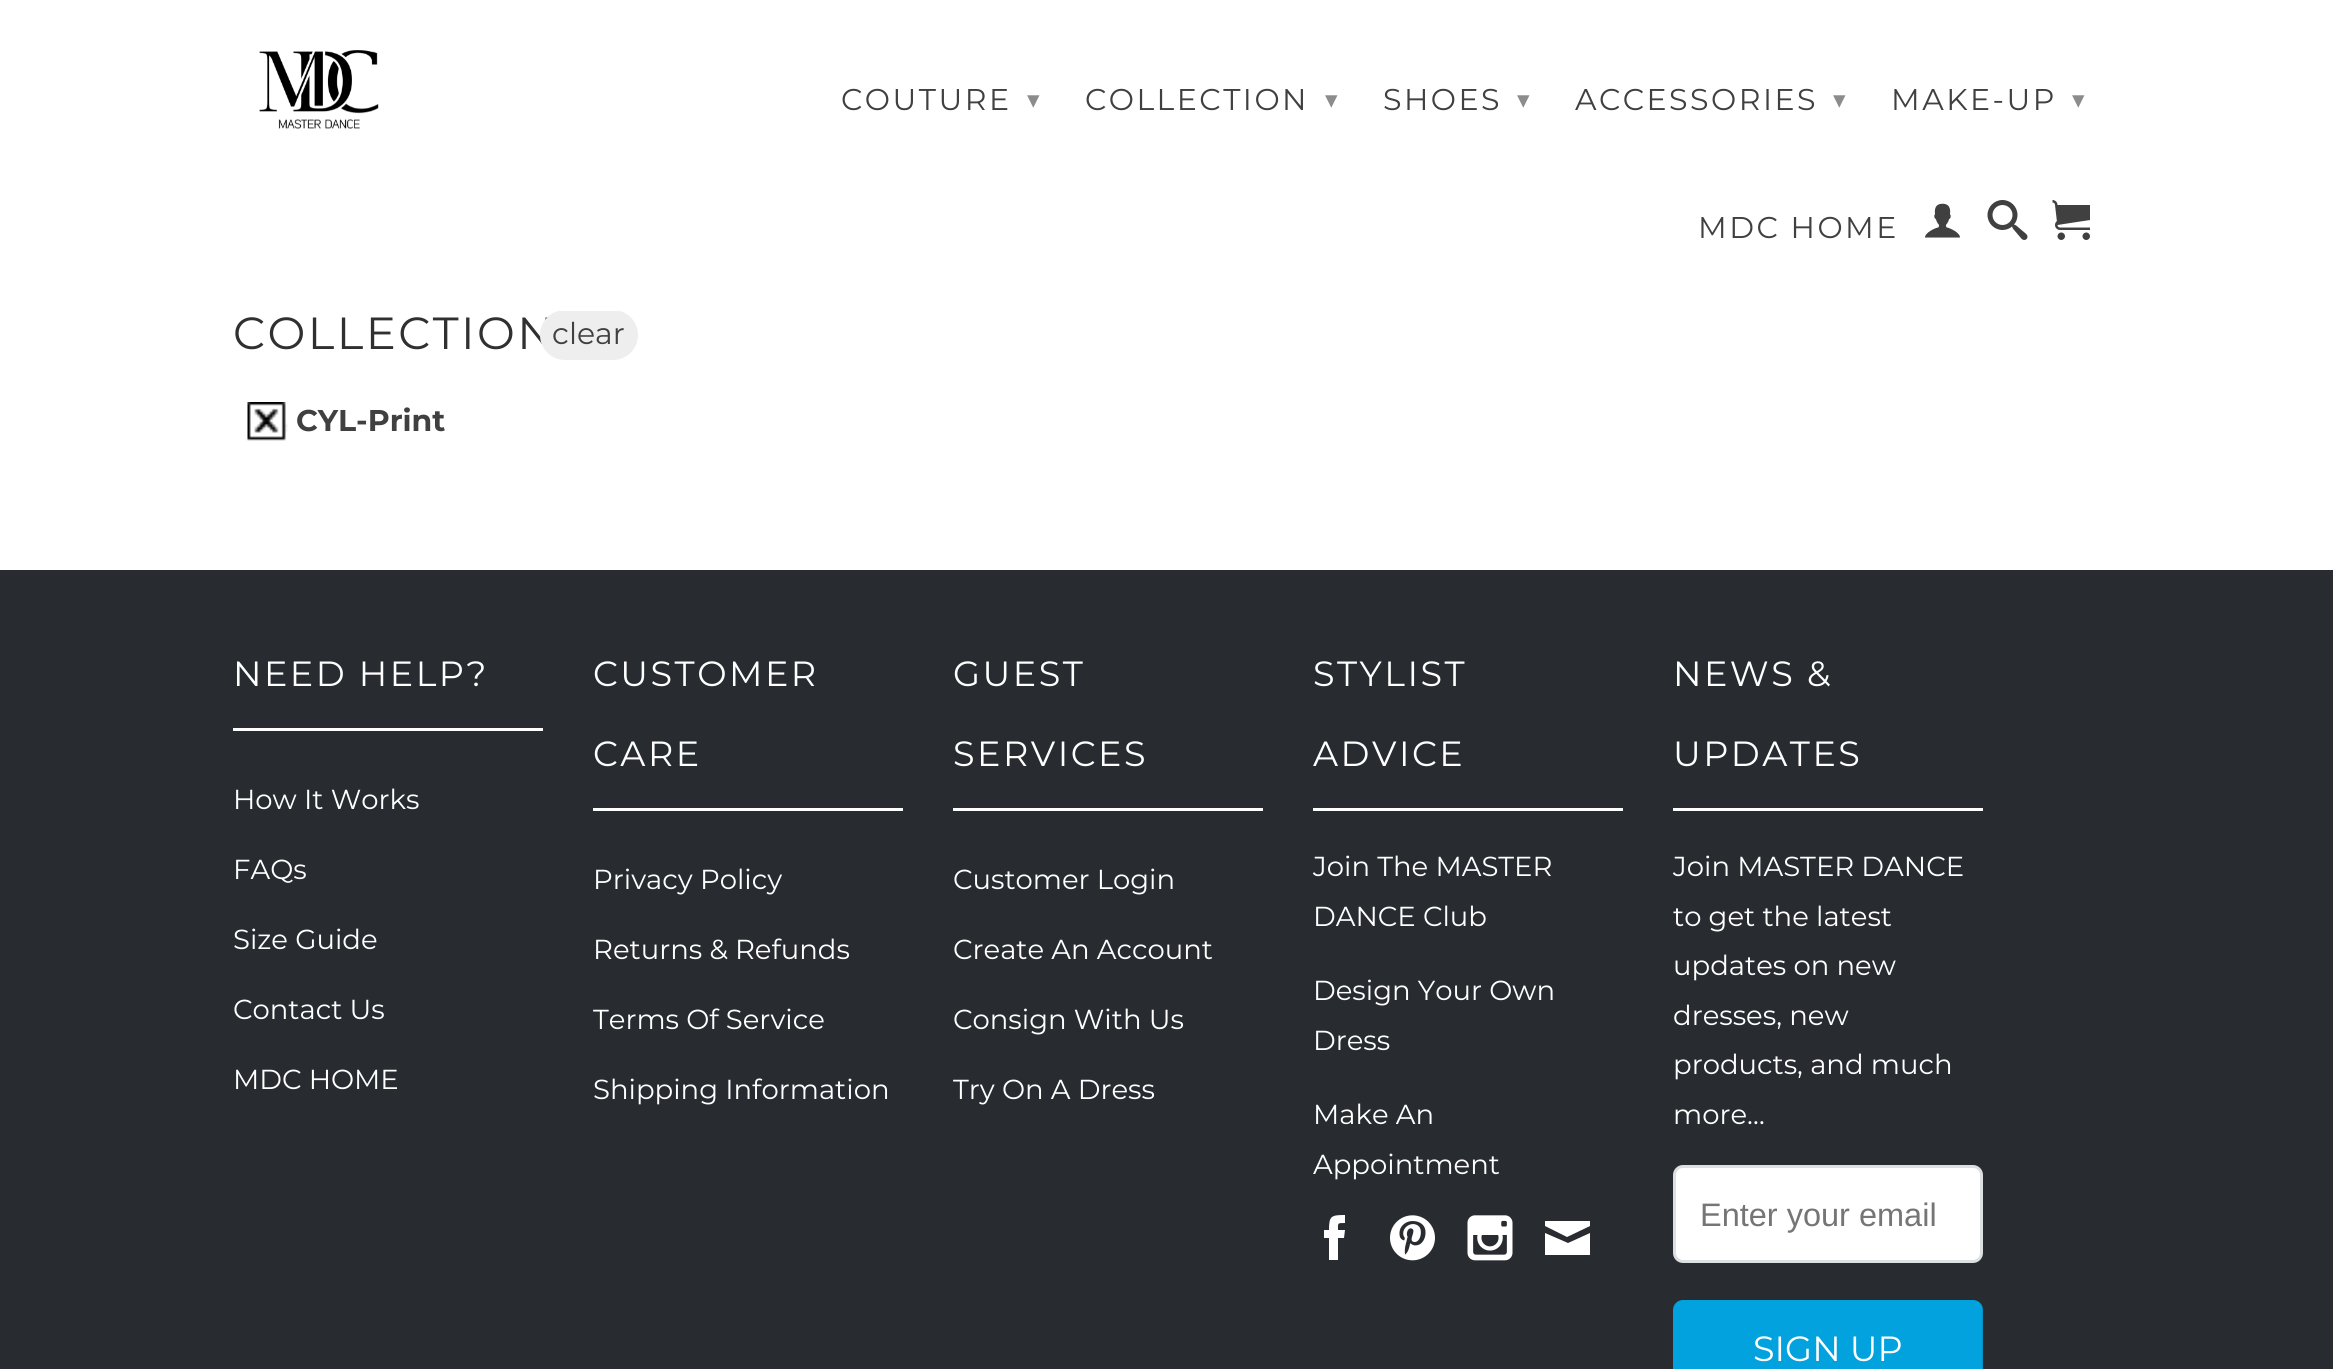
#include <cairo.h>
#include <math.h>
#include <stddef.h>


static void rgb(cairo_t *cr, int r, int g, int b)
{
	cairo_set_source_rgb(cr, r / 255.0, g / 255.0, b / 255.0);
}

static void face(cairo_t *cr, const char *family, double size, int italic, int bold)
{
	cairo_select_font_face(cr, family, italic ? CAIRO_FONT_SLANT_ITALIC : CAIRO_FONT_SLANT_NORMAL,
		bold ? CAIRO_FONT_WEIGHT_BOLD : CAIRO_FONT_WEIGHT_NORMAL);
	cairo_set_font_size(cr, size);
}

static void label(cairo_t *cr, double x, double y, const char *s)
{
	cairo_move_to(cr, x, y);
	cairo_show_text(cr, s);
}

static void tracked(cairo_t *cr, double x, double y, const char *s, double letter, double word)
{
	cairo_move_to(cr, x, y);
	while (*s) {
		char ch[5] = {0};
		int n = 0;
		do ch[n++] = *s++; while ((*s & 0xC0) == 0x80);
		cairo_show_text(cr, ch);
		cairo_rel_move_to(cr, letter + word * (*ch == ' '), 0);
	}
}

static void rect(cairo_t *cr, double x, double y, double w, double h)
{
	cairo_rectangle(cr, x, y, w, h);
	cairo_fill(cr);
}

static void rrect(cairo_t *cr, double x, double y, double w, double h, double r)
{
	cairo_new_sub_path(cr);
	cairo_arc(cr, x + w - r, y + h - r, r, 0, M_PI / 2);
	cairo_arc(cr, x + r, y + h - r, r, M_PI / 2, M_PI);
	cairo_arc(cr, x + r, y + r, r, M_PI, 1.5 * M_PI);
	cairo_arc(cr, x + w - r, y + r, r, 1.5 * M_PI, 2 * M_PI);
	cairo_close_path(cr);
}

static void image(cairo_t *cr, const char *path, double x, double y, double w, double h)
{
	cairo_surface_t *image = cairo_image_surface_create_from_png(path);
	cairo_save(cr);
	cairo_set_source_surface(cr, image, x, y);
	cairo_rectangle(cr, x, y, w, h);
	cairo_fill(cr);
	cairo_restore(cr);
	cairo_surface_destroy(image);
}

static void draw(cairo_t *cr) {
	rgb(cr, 255, 255, 255);
	cairo_paint(cr);
	face(cr, "Montserrat", 45, 0, 0);
	rgb(cr, 48, 48, 48);
	tracked(cr, 233, 349, "COLLECTION", 2.5, 0);
	rgb(cr, 238, 238, 238);
	rrect(cr, 540, 310, 98, 50, 25);
	cairo_fill(cr);
	rgb(cr, 255, 255, 255);
	rect(cr, 559, 310, 60, 1);
	image(cr, "image0.png", 259, 50, 120, 79);
	face(cr, "Montserrat", 30, 0, 0);
	rgb(cr, 64, 64, 64);
	tracked(cr, 841, 110, "COUTURE", 2.5, 0);
	face(cr, "DejaVu Sans", 25, 0, 0);
	rgb(cr, 140, 140, 140);
	tracked(cr, 1027, 108, "▾", 2.5, 0);
	face(cr, "Montserrat", 30, 0, 0);
	rgb(cr, 64, 64, 64);
	tracked(cr, 1085, 110, "COLLECTION", 2.5, 0);
	face(cr, "DejaVu Sans", 25, 0, 0);
	rgb(cr, 140, 140, 140);
	tracked(cr, 1325, 108, "▾", 2.5, 0);
	face(cr, "Montserrat", 30, 0, 0);
	rgb(cr, 64, 64, 64);
	tracked(cr, 1383, 110, "SHOES", 2.5, 0);
	face(cr, "DejaVu Sans", 25, 0, 0);
	rgb(cr, 140, 140, 140);
	tracked(cr, 1517, 108, "▾", 2.5, 0);
	face(cr, "Montserrat", 30, 0, 0);
	rgb(cr, 64, 64, 64);
	tracked(cr, 1575, 110, "ACCESSORIES", 2.5, 0);
	face(cr, "DejaVu Sans", 25, 0, 0);
	rgb(cr, 140, 140, 140);
	tracked(cr, 1833, 108, "▾", 2.5, 0);
	face(cr, "Montserrat", 30, 0, 0);
	rgb(cr, 64, 64, 64);
	tracked(cr, 1891, 110, "MAKE-UP", 2.5, 0);
	face(cr, "DejaVu Sans", 25, 0, 0);
	rgb(cr, 140, 140, 140);
	tracked(cr, 2072, 108, "▾", 2.5, 0);
	face(cr, "Montserrat", 30, 0, 0);
	rgb(cr, 64, 64, 64);
	tracked(cr, 1698, 238, "MDC HOME", 2.5, 0);
	image(cr, "image1.png", 1925, 203, 35, 35);
	image(cr, "image2.png", 1987, 200, 41, 40);
	image(cr, "image3.png", 2052, 200, 38, 40);
	label(cr, 552, 344, "clear");
	image(cr, "image4.png", 247, 402, 41, 39);
	face(cr, "Montserrat", 30, 0, 1);
	label(cr, 296, 431, "CYL-Print");
	rgb(cr, 40, 44, 48);
	rect(cr, 0, 570, 2333, 799);
	rgb(cr, 255, 255, 255);
	rect(cr, 233, 728, 310, 3);
	face(cr, "Montserrat", 35, 0, 0);
	tracked(cr, 233, 686, "NEED HELP?", 2.5, 0);
	face(cr, "Montserrat", 27.5, 0, 0);
	label(cr, 233, 809, "How It Works");
	label(cr, 233, 879, "FAQs");
	label(cr, 233, 949, "Size Guide");
	label(cr, 233, 1019, "Contact Us");
	label(cr, 233, 1089, "MDC HOME");
	rect(cr, 593, 808, 310, 3);
	face(cr, "Montserrat", 35, 0, 0);
	tracked(cr, 593, 686, "CUSTOMER", 2.5, 0);
	tracked(cr, 593, 766, "CARE", 2.5, 0);
	face(cr, "Montserrat", 27.5, 0, 0);
	label(cr, 593, 889, "Privacy Policy");
	label(cr, 593, 959, "Returns & Refunds");
	label(cr, 593, 1029, "Terms Of Service");
	label(cr, 593, 1099, "Shipping Information");
	rect(cr, 953, 808, 310, 3);
	face(cr, "Montserrat", 35, 0, 0);
	tracked(cr, 953, 686, "GUEST", 2.5, 0);
	tracked(cr, 953, 766, "SERVICES", 2.5, 0);
	face(cr, "Montserrat", 27.5, 0, 0);
	label(cr, 953, 889, "Customer Login");
	label(cr, 953, 959, "Create An Account");
	label(cr, 953, 1029, "Consign With Us");
	label(cr, 953, 1099, "Try On A Dress");
	rect(cr, 1313, 808, 310, 3);
	face(cr, "Montserrat", 35, 0, 0);
	tracked(cr, 1313, 686, "STYLIST", 2.5, 0);
	tracked(cr, 1313, 766, "ADVICE", 2.5, 0);
	face(cr, "Montserrat", 27.5, 0, 0);
	label(cr, 1313, 876, "Join The MASTER");
	label(cr, 1313, 926, "DANCE Club");
	label(cr, 1313, 1000, "Design Your Own");
	label(cr, 1313, 1050, "Dress");
	label(cr, 1313, 1124, "Make An");
	label(cr, 1313, 1174, "Appointment");
	cairo_new_path(cr);
	cairo_move_to(cr, 1338, 1260);
	cairo_line_to(cr, 1338, 1238);
	cairo_line_to(cr, 1344, 1238);
	cairo_line_to(cr, 1345, 1230);
	cairo_line_to(cr, 1338, 1230);
	cairo_curve_to(cr, 1338, 1223, 1337, 1223, 1345, 1223);
	cairo_line_to(cr, 1345, 1215);
	cairo_curve_to(cr, 1331, 1215, 1329, 1216, 1329, 1230);
	cairo_line_to(cr, 1324, 1230);
	cairo_line_to(cr, 1324, 1238);
	cairo_line_to(cr, 1329, 1238);
	cairo_line_to(cr, 1329, 1260);
	cairo_close_path(cr);
	cairo_fill(cr);
	image(cr, "image5.png", 1390, 1215, 45, 46);
	image(cr, "image6.png", 1467, 1215, 46, 46);
	cairo_new_path(cr);
	cairo_move_to(cr, 1567, 1237);
	cairo_line_to(cr, 1545, 1226);
	cairo_line_to(cr, 1545, 1221);
	cairo_line_to(cr, 1590, 1221);
	cairo_line_to(cr, 1590, 1226);
	cairo_close_path(cr);
	cairo_move_to(cr, 1568, 1243);
	cairo_line_to(cr, 1590, 1233);
	cairo_line_to(cr, 1590, 1255);
	cairo_line_to(cr, 1545, 1255);
	cairo_line_to(cr, 1545, 1233);
	cairo_close_path(cr);
	cairo_fill(cr);
	rect(cr, 1673, 808, 310, 3);
	face(cr, "Montserrat", 35, 0, 0);
	tracked(cr, 1673, 686, "NEWS &", 2.5, 0);
	tracked(cr, 1673, 766, "UPDATES", 2.5, 0);
	face(cr, "Montserrat", 27.5, 0, 0);
	label(cr, 1673, 876, "Join MASTER DANCE");
	label(cr, 1673, 926, "to get the latest");
	label(cr, 1673, 975, "updates on new");
	label(cr, 1673, 1025, "dresses, new");
	label(cr, 1673, 1074, "products, and much");
	label(cr, 1673, 1124, "more…");
	rrect(cr, 1674.5, 1166.5, 307, 95, 8.5);
	cairo_fill_preserve(cr);
	rgb(cr, 220, 224, 224);
	cairo_set_line_width(cr, 3);
	cairo_stroke(cr);
	face(cr, "Liberation Sans", 32.5, 0, 0);
	rgb(cr, 117, 117, 117);
	label(cr, 1700, 1226, "Enter your email");
	rgb(cr, 1, 162, 221);
	rrect(cr, 1673, 1300, 310, 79, 10);
	cairo_fill(cr);
	cairo_set_source_rgba(cr, 0, 0, 0, 0.1);
	cairo_new_path(cr);
	cairo_move_to(cr, 1673, 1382);
	cairo_line_to(cr, 1673, 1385);
	cairo_curve_to(cr, 1673, 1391, 1677, 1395, 1683, 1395);
	cairo_line_to(cr, 1973, 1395);
	cairo_curve_to(cr, 1979, 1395, 1983, 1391, 1983, 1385);
	cairo_line_to(cr, 1983, 1310);
	cairo_line_to(cr, 1982, 1306);
	cairo_line_to(cr, 1982, 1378);
	cairo_curve_to(cr, 1982, 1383, 1978, 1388, 1972, 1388);
	cairo_line_to(cr, 1682, 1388);
	cairo_curve_to(cr, 1678, 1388, 1675, 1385, 1673, 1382);
	cairo_close_path(cr);
	cairo_fill(cr);
	face(cr, "Montserrat", 35, 0, 0);
	rgb(cr, 255, 255, 255);
	label(cr, 1753, 1361, "SIGN UP");
}

int main(void) {
	cairo_surface_t *surface = cairo_image_surface_create(CAIRO_FORMAT_RGB24, 2333, 1369);
	cairo_t *cr = cairo_create(surface);
	cairo_font_options_t *options = cairo_font_options_create();
	cairo_font_options_set_hint_metrics(options, CAIRO_HINT_METRICS_OFF);
	cairo_font_options_set_hint_style(options, CAIRO_HINT_STYLE_NONE);
	cairo_set_font_options(cr, options);
	cairo_set_miter_limit(cr, 4);
	draw(cr);
	cairo_surface_write_to_png(surface, "render.png");
	cairo_font_options_destroy(options);
	cairo_destroy(cr);
	cairo_surface_destroy(surface);
	return 0;
}
